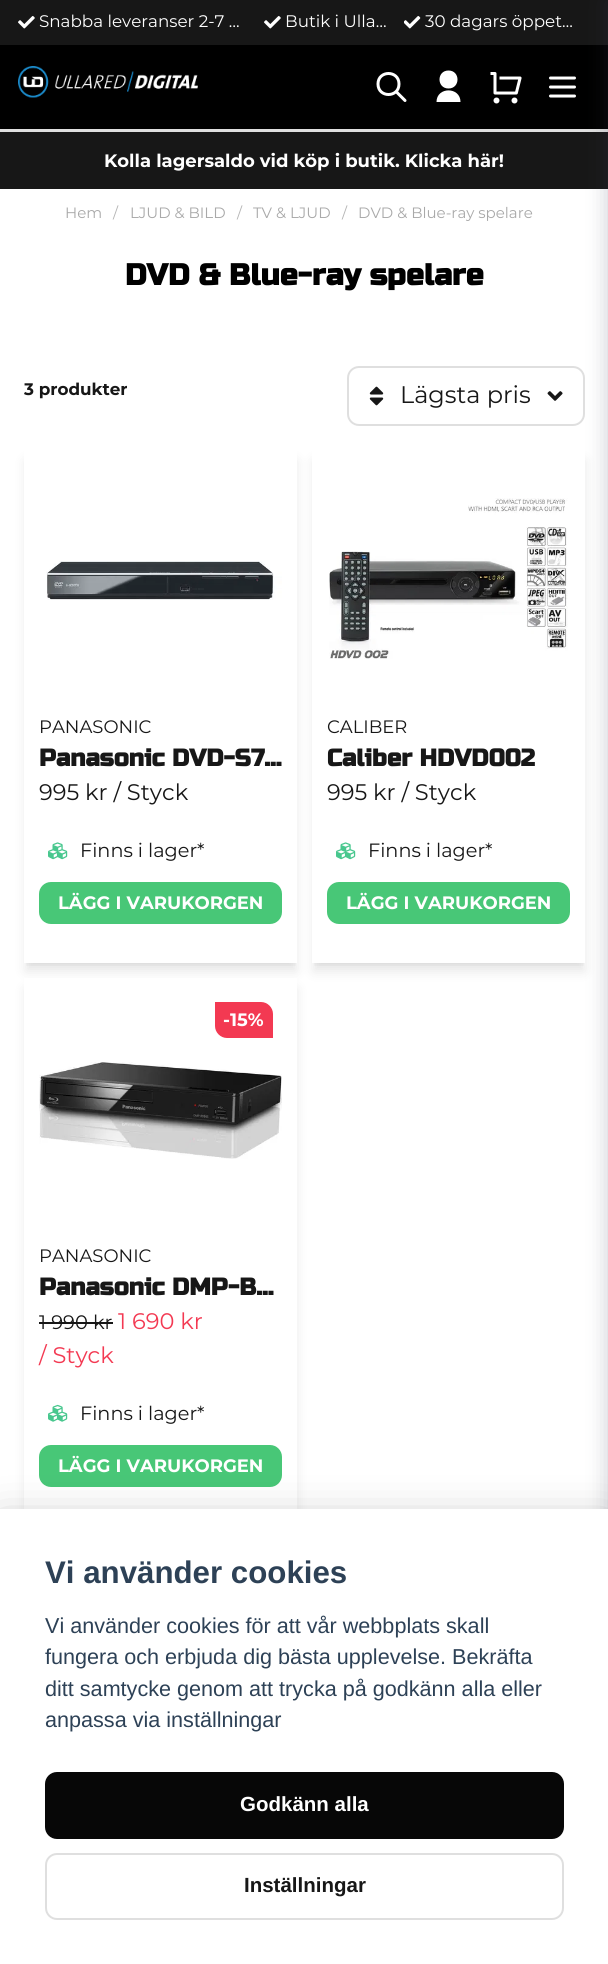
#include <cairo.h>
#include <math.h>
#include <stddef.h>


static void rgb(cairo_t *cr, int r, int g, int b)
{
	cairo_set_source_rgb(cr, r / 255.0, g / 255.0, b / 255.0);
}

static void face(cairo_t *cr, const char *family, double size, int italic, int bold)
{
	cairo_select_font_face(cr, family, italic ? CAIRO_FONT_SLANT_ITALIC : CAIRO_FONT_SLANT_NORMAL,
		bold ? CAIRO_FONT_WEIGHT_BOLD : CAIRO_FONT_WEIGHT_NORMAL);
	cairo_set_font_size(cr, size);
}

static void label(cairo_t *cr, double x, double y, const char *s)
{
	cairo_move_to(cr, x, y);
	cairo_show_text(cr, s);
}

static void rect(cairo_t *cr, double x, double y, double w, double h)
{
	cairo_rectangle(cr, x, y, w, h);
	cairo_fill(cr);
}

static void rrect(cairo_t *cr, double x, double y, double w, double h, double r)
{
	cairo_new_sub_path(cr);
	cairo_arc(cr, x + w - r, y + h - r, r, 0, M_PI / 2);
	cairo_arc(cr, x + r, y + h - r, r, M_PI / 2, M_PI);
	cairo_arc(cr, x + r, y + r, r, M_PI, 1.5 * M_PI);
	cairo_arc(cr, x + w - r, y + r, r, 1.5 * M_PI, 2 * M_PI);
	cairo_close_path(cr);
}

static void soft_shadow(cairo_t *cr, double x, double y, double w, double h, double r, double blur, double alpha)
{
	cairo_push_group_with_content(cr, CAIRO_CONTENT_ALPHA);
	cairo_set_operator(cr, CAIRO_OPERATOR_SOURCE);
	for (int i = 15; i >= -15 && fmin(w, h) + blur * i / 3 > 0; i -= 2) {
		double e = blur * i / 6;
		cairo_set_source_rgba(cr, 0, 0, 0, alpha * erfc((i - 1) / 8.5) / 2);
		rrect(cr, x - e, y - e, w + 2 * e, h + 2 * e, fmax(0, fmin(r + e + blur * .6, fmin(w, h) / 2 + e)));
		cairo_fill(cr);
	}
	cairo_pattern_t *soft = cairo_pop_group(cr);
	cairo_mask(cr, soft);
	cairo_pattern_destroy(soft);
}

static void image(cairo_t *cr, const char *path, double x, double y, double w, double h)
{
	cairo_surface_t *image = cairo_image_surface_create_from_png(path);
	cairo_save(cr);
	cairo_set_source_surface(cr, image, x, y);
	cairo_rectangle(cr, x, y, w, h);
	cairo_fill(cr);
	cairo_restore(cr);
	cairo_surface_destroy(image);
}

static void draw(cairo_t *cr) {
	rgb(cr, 255, 255, 255);
	cairo_paint(cr);
	rgb(cr, 0, 0, 0);
	rect(cr, 0, 45, 608, 84);
	rgb(cr, 223, 223, 223);
	rect(cr, 0, 129, 608, 3);
	rgb(cr, 23, 23, 23);
	rect(cr, 0, 0, 608, 45);
	image(cr, "image0.png", 18, 16, 17, 13);
	face(cr, "Montserrat", 16.75, 0, 0);
	rgb(cr, 255, 255, 255);
	label(cr, 39, 27, "Snabba leveranser 2-7 …");
	image(cr, "image0.png", 264, 16, 17, 13);
	label(cr, 285, 27, "Butik i Ulla…");
	image(cr, "image1.png", 404, 16, 17, 13);
	label(cr, 425, 27, "30 dagars öppet…");
	image(cr, "image2.png", 18, 66, 180, 32);
	cairo_new_path(cr);
	cairo_move_to(cr, 405, 100.5);
	cairo_line_to(cr, 396, 91.5);
	cairo_move_to(cr, 399, 84);
	cairo_curve_to(cr, 399, 98, 378, 98, 378, 84);
	cairo_curve_to(cr, 378, 70, 399, 70, 399, 84);
	cairo_close_path(cr);
	cairo_set_line_width(cr, 3);
	cairo_set_line_cap(cr, CAIRO_LINE_CAP_ROUND);
	cairo_set_line_join(cr, CAIRO_LINE_JOIN_ROUND);
	cairo_stroke(cr);
	cairo_new_path(cr);
	cairo_move_to(cr, 436.5, 102);
	cairo_curve_to(cr, 436.5, 86.5, 460.5, 86.5, 460.5, 102);
	cairo_close_path(cr);
	cairo_move_to(cr, 448.5, 88.5);
	cairo_curve_to(cr, 436.5, 88.5, 436.5, 70.5, 448.5, 70.5);
	cairo_curve_to(cr, 460.5, 70.5, 460.5, 88.5, 448.5, 88.5);
	cairo_close_path(cr);
	cairo_fill(cr);
	image(cr, "image3.png", 490, 72, 32, 32);
	cairo_new_path(cr);
	cairo_move_to(cr, 550.5, 78);
	cairo_line_to(cr, 574.5, 78);
	cairo_move_to(cr, 550.5, 87);
	cairo_line_to(cr, 574.5, 87);
	cairo_move_to(cr, 550.5, 96);
	cairo_line_to(cr, 574.5, 96);
	cairo_stroke(cr);
	rgb(cr, 23, 23, 23);
	rect(cr, 0, 132, 608, 57);
	rrect(cr, 348, 367, 236, 58, 11);
	rgb(cr, 223, 223, 223);
	cairo_set_line_width(cr, 2);
	cairo_set_line_cap(cr, CAIRO_LINE_CAP_BUTT);
	cairo_set_line_join(cr, CAIRO_LINE_JOIN_MITER);
	cairo_stroke(cr);
	rgb(cr, 60, 66, 87);
	soft_shadow(cr, 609, 2, 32, 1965, 0, 11, 0.3);
	face(cr, "Montserrat", 18, 0, 1);
	rgb(cr, 255, 255, 255);
	label(cr, 104, 167, "Kolla lagersaldo vid köp i butik. Klicka här!");
	face(cr, "Montserrat", 15, 0, 0);
	rgb(cr, 169, 169, 169);
	label(cr, 65, 218, "Hem");
	rgb(cr, 181, 181, 181);
	label(cr, 113, 218, "/");
	rgb(cr, 169, 169, 169);
	label(cr, 130, 218, "LJUD & BILD");
	rgb(cr, 181, 181, 181);
	label(cr, 237, 218, "/");
	rgb(cr, 169, 169, 169);
	label(cr, 253, 218, "TV & LJUD");
	rgb(cr, 181, 181, 181);
	label(cr, 342, 218, "/");
	rgb(cr, 169, 169, 169);
	label(cr, 358, 218, "DVD & Blue-ray spelare");
	face(cr, "Russo One", 30, 0, 1);
	rgb(cr, 0, 0, 0);
	label(cr, 125, 285, "DVD & Blue-ray spelare");
	face(cr, "Montserrat", 16.75, 0, 1);
	rgb(cr, 23, 23, 23);
	label(cr, 24, 395, "3 produkter");
	image(cr, "image4.png", 369, 386, 15, 20);
	face(cr, "Montserrat", 24, 0, 0);
	label(cr, 400, 403, "Lägsta pris");
	image(cr, "image5.png", 547, 391, 16, 10);
	cairo_save(cr);
	cairo_rectangle(cr, 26, 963, 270, 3);
	cairo_clip(cr);
	rgb(cr, 0, 0, 0);
	soft_shadow(cr, 26, 455, 270, 510, 0, 3, 0.06);
	cairo_restore(cr);
	cairo_save(cr);
	cairo_set_fill_rule(cr, CAIRO_FILL_RULE_EVEN_ODD);
	cairo_new_path(cr);
	cairo_move_to(cr, 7, 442);
	cairo_line_to(cr, 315, 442);
	cairo_line_to(cr, 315, 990);
	cairo_line_to(cr, 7, 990);
	cairo_close_path(cr);
	cairo_move_to(cr, 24, 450);
	cairo_line_to(cr, 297, 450);
	cairo_line_to(cr, 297, 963);
	cairo_line_to(cr, 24, 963);
	cairo_close_path(cr);
	cairo_clip(cr);
	rgb(cr, 0, 0, 0);
	soft_shadow(cr, 26, 461, 270, 510, 0, 6, 0.1);
	cairo_restore(cr);
	image(cr, "image6.png", 46, 561, 236, 39);
	face(cr, "Montserrat", 18, 0, 0);
	label(cr, 39, 733, "PANASONIC");
	face(cr, "Russo One", 24, 0, 1);
	label(cr, 39, 766, "Panasonic DVD-S7…");
	face(cr, "Montserrat", 22.5, 0, 0);
	label(cr, 39, 800, "995 kr / Styck");
	image(cr, "image7.png", 48, 842, 20, 18);
	face(cr, "Montserrat", 19.25, 0, 0);
	label(cr, 80, 857, "Finns i lager*");
	rgb(cr, 72, 199, 119);
	rrect(cr, 40, 883, 241, 40, 11);
	cairo_fill_preserve(cr);
	cairo_stroke(cr);
	face(cr, "Montserrat", 18, 0, 1);
	rgb(cr, 255, 255, 255);
	label(cr, 58, 909, "LÄGG I VARUKORGEN");
	cairo_save(cr);
	cairo_rectangle(cr, 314, 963, 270, 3);
	cairo_clip(cr);
	rgb(cr, 0, 0, 0);
	soft_shadow(cr, 314, 455, 270, 510, 0, 3, 0.06);
	cairo_restore(cr);
	cairo_save(cr);
	cairo_set_fill_rule(cr, CAIRO_FILL_RULE_EVEN_ODD);
	cairo_new_path(cr);
	cairo_move_to(cr, 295, 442);
	cairo_line_to(cr, 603, 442);
	cairo_line_to(cr, 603, 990);
	cairo_line_to(cr, 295, 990);
	cairo_close_path(cr);
	cairo_move_to(cr, 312, 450);
	cairo_line_to(cr, 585, 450);
	cairo_line_to(cr, 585, 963);
	cairo_line_to(cr, 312, 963);
	cairo_close_path(cr);
	cairo_clip(cr);
	rgb(cr, 0, 0, 0);
	soft_shadow(cr, 314, 461, 270, 510, 0, 6, 0.1);
	cairo_restore(cr);
	image(cr, "image8.png", 329, 498, 239, 161);
	face(cr, "Montserrat", 18, 0, 0);
	rgb(cr, 23, 23, 23);
	label(cr, 327, 733, "CALIBER");
	face(cr, "Russo One", 24, 0, 1);
	label(cr, 327, 766, "Caliber HDVD002");
	face(cr, "Montserrat", 22.5, 0, 0);
	label(cr, 327, 800, "995 kr / Styck");
	image(cr, "image7.png", 336, 842, 20, 18);
	face(cr, "Montserrat", 19.25, 0, 0);
	label(cr, 368, 857, "Finns i lager*");
	rgb(cr, 72, 199, 119);
	rrect(cr, 328, 883, 241, 40, 11);
	cairo_fill_preserve(cr);
	cairo_stroke(cr);
	face(cr, "Montserrat", 18, 0, 1);
	rgb(cr, 255, 255, 255);
	label(cr, 346, 909, "LÄGG I VARUKORGEN");
	rgb(cr, 0, 0, 0);
	soft_shadow(cr, 26, 989, 270, 544, 0, 6, 0.1);
	rgb(cr, 255, 255, 255);
	rect(cr, 24, 978, 273, 531);
	rgb(cr, 243, 57, 82);
	cairo_new_path(cr);
	cairo_move_to(cr, 215, 1002);
	cairo_line_to(cr, 261, 1002);
	cairo_curve_to(cr, 267.5, 1002, 273, 1007.5, 273, 1014);
	cairo_line_to(cr, 273, 1038);
	cairo_line_to(cr, 227, 1038);
	cairo_curve_to(cr, 220.5, 1038, 215, 1032.5, 215, 1026);
	cairo_close_path(cr);
	cairo_fill(cr);
	rgb(cr, 255, 255, 255);
	label(cr, 223, 1026, "-15%");
	image(cr, "image9.png", 39, 1062, 243, 97);
	face(cr, "Montserrat", 18, 0, 0);
	rgb(cr, 23, 23, 23);
	label(cr, 39, 1262, "PANASONIC");
	face(cr, "Russo One", 24, 0, 1);
	label(cr, 39, 1295, "Panasonic DMP-B…");
	face(cr, "Montserrat", 19.5, 0, 0);
	label(cr, 39, 1329, "1 990 kr");
	rect(cr, 39, 1322, 74, 2);
	face(cr, "Montserrat", 22.5, 0, 0);
	rgb(cr, 243, 57, 82);
	label(cr, 118, 1329, "1 690 kr");
	label(cr, 39, 1363, "/ Styck");
	image(cr, "image10.png", 48, 1404, 20, 18);
	face(cr, "Montserrat", 19.25, 0, 0);
	rgb(cr, 23, 23, 23);
	label(cr, 80, 1420, "Finns i lager*");
	rgb(cr, 72, 199, 119);
	rrect(cr, 40, 1446, 241, 40, 11);
	cairo_fill_preserve(cr);
	cairo_stroke(cr);
	face(cr, "Montserrat", 18, 0, 1);
	rgb(cr, 255, 255, 255);
	label(cr, 58, 1472, "LÄGG I VARUKORGEN");
	rgb(cr, 2, 2, 3);
	soft_shadow(cr, 0, 1524, 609, 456, 0, 22.5, 0.28);
	rgb(cr, 255, 255, 255);
	rect(cr, 0, 1509, 608, 455);
	face(cr, "Liberation Sans", 31.25, 0, 1);
	rgb(cr, 45, 65, 86);
	label(cr, 45, 1583, "Vi använder cookies");
	face(cr, "Liberation Sans", 21.6, 0, 0);
	label(cr, 45, 1633, "Vi använder cookies för att vår webbplats skall");
	label(cr, 45, 1664, "fungera och erbjuda dig bästa upplevelse. Bekräfta");
	label(cr, 45, 1696, "ditt samtycke genom att trycka på godkänn alla eller");
	label(cr, 45, 1727, "anpassa via inställningar");
	rgb(cr, 7, 7, 7);
	rrect(cr, 46, 1773, 517, 65, 11);
	cairo_fill_preserve(cr);
	cairo_stroke(cr);
	face(cr, "Liberation Sans", 20.5, 0, 1);
	rgb(cr, 255, 255, 255);
	label(cr, 240, 1811, "Godkänn alla");
	rrect(cr, 46, 1854, 517, 65, 11);
	rgb(cr, 223, 223, 223);
	cairo_stroke(cr);
	rgb(cr, 23, 23, 23);
	label(cr, 244, 1892, "Inställningar");
}

int main(void) {
	cairo_surface_t *surface = cairo_image_surface_create(CAIRO_FORMAT_RGB24, 608, 1964);
	cairo_t *cr = cairo_create(surface);
	cairo_font_options_t *options = cairo_font_options_create();
	cairo_font_options_set_hint_metrics(options, CAIRO_HINT_METRICS_OFF);
	cairo_font_options_set_hint_style(options, CAIRO_HINT_STYLE_NONE);
	cairo_set_font_options(cr, options);
	cairo_set_miter_limit(cr, 4);
	draw(cr);
	cairo_surface_write_to_png(surface, "render.png");
	cairo_font_options_destroy(options);
	cairo_destroy(cr);
	cairo_surface_destroy(surface);
	return 0;
}
